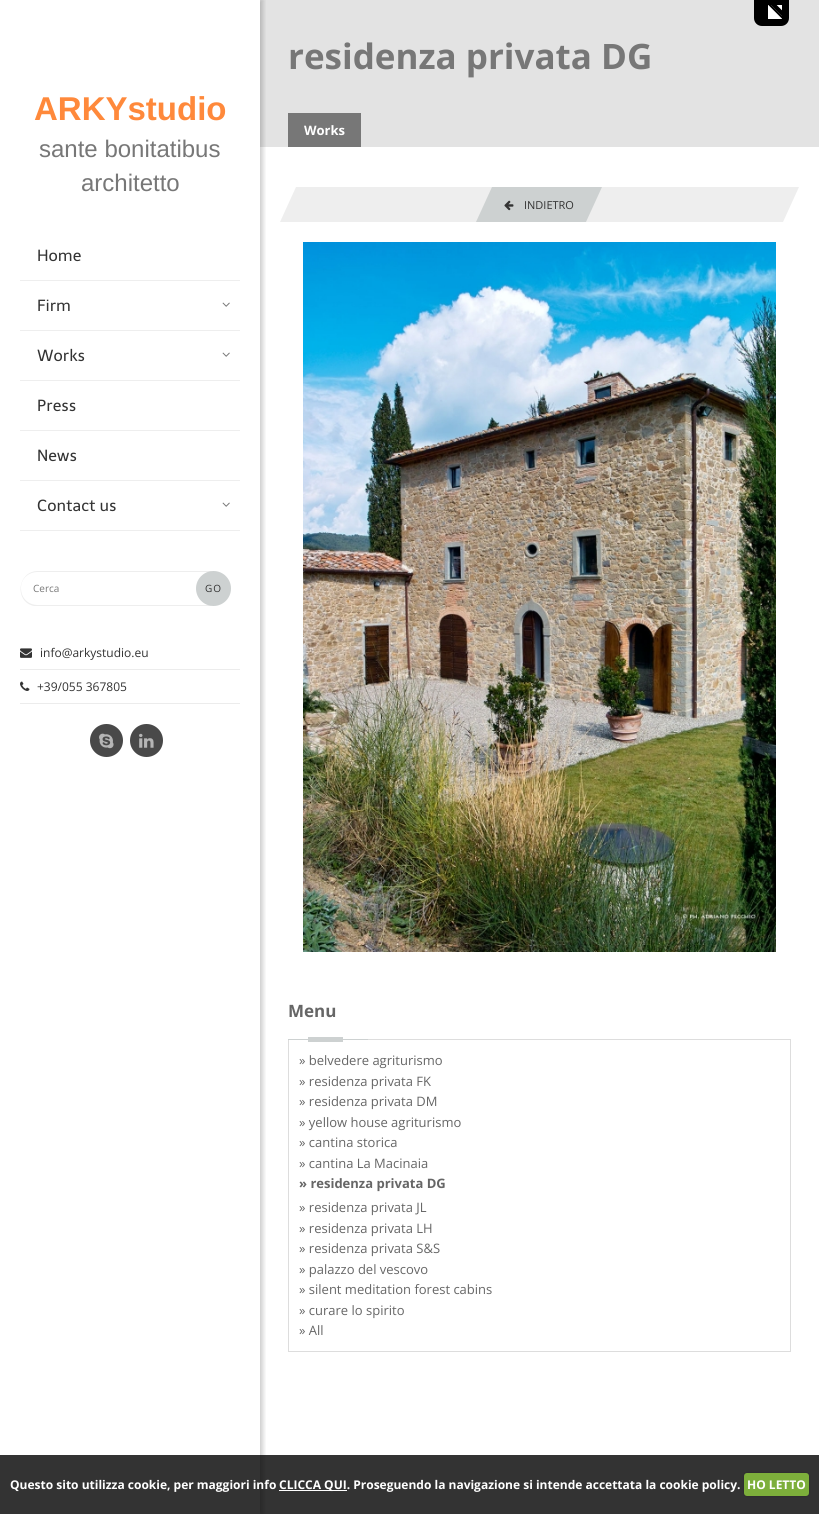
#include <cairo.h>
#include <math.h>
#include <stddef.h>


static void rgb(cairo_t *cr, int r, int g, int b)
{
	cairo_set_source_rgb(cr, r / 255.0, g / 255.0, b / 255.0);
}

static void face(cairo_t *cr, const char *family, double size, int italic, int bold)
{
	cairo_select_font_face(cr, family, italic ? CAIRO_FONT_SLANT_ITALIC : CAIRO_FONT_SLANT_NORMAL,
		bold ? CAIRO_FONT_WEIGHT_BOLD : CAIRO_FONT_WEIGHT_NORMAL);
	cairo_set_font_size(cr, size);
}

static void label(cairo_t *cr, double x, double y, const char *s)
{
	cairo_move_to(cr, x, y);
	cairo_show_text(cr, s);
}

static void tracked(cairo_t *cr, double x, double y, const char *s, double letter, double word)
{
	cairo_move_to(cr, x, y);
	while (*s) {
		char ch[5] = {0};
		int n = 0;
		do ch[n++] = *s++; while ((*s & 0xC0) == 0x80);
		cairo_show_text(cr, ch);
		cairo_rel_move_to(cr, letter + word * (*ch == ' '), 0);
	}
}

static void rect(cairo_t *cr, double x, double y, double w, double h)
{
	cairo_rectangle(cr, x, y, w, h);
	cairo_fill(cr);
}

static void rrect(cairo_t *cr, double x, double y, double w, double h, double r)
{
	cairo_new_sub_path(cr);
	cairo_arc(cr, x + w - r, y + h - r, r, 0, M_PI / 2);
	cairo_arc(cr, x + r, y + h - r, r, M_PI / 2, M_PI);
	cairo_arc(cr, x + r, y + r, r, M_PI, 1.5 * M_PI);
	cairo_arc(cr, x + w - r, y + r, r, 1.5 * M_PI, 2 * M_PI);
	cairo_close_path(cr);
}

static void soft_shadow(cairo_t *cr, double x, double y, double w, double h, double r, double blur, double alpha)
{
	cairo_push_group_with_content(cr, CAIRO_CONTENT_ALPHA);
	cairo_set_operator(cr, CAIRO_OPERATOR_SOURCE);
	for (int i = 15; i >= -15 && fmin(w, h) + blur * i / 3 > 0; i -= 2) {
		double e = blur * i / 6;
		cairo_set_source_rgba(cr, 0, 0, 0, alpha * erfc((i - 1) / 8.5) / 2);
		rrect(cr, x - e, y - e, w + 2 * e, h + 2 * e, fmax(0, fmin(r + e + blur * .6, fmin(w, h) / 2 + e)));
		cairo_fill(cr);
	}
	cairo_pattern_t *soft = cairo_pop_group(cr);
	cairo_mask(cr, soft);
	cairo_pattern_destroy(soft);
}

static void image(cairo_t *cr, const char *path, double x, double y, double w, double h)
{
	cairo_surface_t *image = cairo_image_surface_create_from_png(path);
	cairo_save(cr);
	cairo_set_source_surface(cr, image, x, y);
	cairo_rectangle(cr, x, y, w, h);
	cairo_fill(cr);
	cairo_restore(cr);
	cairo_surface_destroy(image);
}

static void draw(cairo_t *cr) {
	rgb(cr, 255, 255, 255);
	cairo_paint(cr);
	rgb(cr, 227, 227, 227);
	rect(cr, 260, 0, 559, 147);
	rgb(cr, 0, 0, 0);
	cairo_new_path(cr);
	cairo_move_to(cr, 754, 0);
	cairo_line_to(cr, 789, 0);
	cairo_line_to(cr, 789, 18);
	cairo_curve_to(cr, 789, 22.5, 785.5, 26, 781, 26);
	cairo_line_to(cr, 762, 26);
	cairo_curve_to(cr, 757.5, 26, 754, 22.5, 754, 18);
	cairo_close_path(cr);
	cairo_fill(cr);
	image(cr, "image0.png", 768, 5, 14, 14);
	cairo_save(cr);
	cairo_rectangle(cr, 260, 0, 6, 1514);
	cairo_clip(cr);
	rgb(cr, 50, 50, 50);
	soft_shadow(cr, 3, 0, 260, 1514, 0, 2.5, 0.25);
	cairo_restore(cr);
	face(cr, "Liberation Sans", 33, 0, 1);
	rgb(cr, 255, 137, 59);
	label(cr, 34, 120, "ARKYstudio");
	face(cr, "Liberation Sans", 24, 0, 0);
	rgb(cr, 119, 119, 119);
	label(cr, 39, 157, "sante bonitatibus");
	label(cr, 81, 191, "architetto");
	rgb(cr, 238, 238, 238);
	rect(cr, 20, 280, 220, 1);
	face(cr, "Telex", 16, 0, 0);
	rgb(cr, 51, 51, 51);
	label(cr, 37, 261, "Home");
	rgb(cr, 238, 238, 238);
	rect(cr, 20, 330, 220, 1);
	rgb(cr, 51, 51, 51);
	label(cr, 37, 311, "Firm");
	image(cr, "image1.png", 222, 302, 8, 5);
	rgb(cr, 238, 238, 238);
	rect(cr, 20, 380, 220, 1);
	rgb(cr, 51, 51, 51);
	label(cr, 37, 361, "Works");
	image(cr, "image1.png", 222, 352, 8, 5);
	rgb(cr, 238, 238, 238);
	rect(cr, 20, 430, 220, 1);
	rgb(cr, 51, 51, 51);
	label(cr, 37, 411, "Press");
	rgb(cr, 238, 238, 238);
	rect(cr, 20, 480, 220, 1);
	rgb(cr, 51, 51, 51);
	label(cr, 37, 461, "News");
	rgb(cr, 238, 238, 238);
	rect(cr, 20, 530, 220, 1);
	rgb(cr, 51, 51, 51);
	label(cr, 37, 511, "Contact us");
	image(cr, "image1.png", 222, 502, 8, 5);
	rgb(cr, 238, 238, 238);
	cairo_set_fill_rule(cr, CAIRO_FILL_RULE_EVEN_ODD);
	cairo_new_path(cr);
	cairo_move_to(cr, 38, 571);
	cairo_line_to(cr, 211, 571);
	cairo_line_to(cr, 211, 606);
	cairo_line_to(cr, 34, 606);
	cairo_curve_to(cr, 14, 602, 17, 571, 38, 571);
	cairo_close_path(cr);
	cairo_move_to(cr, 38, 572);
	cairo_line_to(cr, 211, 572);
	cairo_line_to(cr, 211, 605);
	cairo_line_to(cr, 38, 605);
	cairo_curve_to(cr, 28, 605, 21, 598, 21, 588);
	cairo_curve_to(cr, 21, 579, 28, 572, 38, 572);
	cairo_close_path(cr);
	cairo_fill(cr);
	face(cr, "Open Sans", 10, 0, 0);
	rgb(cr, 119, 119, 119);
	label(cr, 33, 592, "Cerca");
	rgb(cr, 205, 209, 209);
	cairo_new_path(cr);
	cairo_arc(cr, 213.5, 588.5, 17.5, 0, 2 * M_PI);
	cairo_fill(cr);
	rgb(cr, 51, 51, 51);
	tracked(cr, 205, 592, "GO", 1, 0);
	rgb(cr, 236, 236, 236);
	rect(cr, 20, 669, 220, 1);
	image(cr, "image2.png", 20, 648, 12, 10);
	face(cr, "Open Sans", 12, 0, 0);
	rgb(cr, 51, 51, 51);
	label(cr, 40, 657, "info@arkystudio.eu");
	rgb(cr, 236, 236, 236);
	rect(cr, 20, 703, 220, 1);
	image(cr, "image3.png", 20, 681, 10, 10);
	rgb(cr, 51, 51, 51);
	label(cr, 37, 691, "+39/055 367805");
	rgb(cr, 73, 73, 73);
	cairo_new_path(cr);
	cairo_arc(cr, 106.5, 740.5, 16.5, 0, 2 * M_PI);
	cairo_fill(cr);
	image(cr, "image4.png", 99, 733, 15, 16);
	cairo_arc(cr, 146.5, 740.5, 16.5, 0, 2 * M_PI);
	cairo_fill(cr);
	image(cr, "image5.png", 139, 733, 15, 15);
	face(cr, "Open Sans", 35, 0, 1);
	rgb(cr, 119, 119, 119);
	label(cr, 288, 69, "residenza privata DG");
	rect(cr, 288, 113, 73, 34);
	face(cr, "Open Sans", 13, 0, 1);
	rgb(cr, 255, 255, 255);
	label(cr, 304, 135, "Works");
	rgb(cr, 238, 238, 238);
	cairo_set_fill_rule(cr, CAIRO_FILL_RULE_WINDING);
	cairo_new_path(cr);
	cairo_move_to(cr, 296, 187);
	cairo_line_to(cr, 799, 187);
	cairo_line_to(cr, 783, 222);
	cairo_line_to(cr, 280, 222);
	cairo_close_path(cr);
	cairo_fill(cr);
	rgb(cr, 205, 209, 209);
	cairo_new_path(cr);
	cairo_move_to(cr, 492, 187);
	cairo_line_to(cr, 602, 187);
	cairo_line_to(cr, 586, 222);
	cairo_line_to(cr, 476, 222);
	cairo_close_path(cr);
	cairo_fill(cr);
	image(cr, "image6.png", 504, 200, 10, 11);
	face(cr, "Open Sans", 11, 0, 0);
	rgb(cr, 51, 51, 51);
	label(cr, 524, 209, "INDIETRO");
	image(cr, "image7.png", 303, 242, 473, 710);
	rgb(cr, 221, 221, 221);
	rect(cr, 368, 1039, 423, 1);
	face(cr, "Open Sans", 17, 0, 1);
	rgb(cr, 102, 102, 102);
	label(cr, 288, 1017, "Menu");
	rgb(cr, 205, 209, 209);
	rect(cr, 308, 1037, 35, 5);
	rect(cr, 288, 1039, 80, 1);
	rgb(cr, 221, 221, 221);
	rect(cr, 790, 1040, 1, 312);
	rect(cr, 288, 1351, 503, 1);
	rect(cr, 288, 1040, 1, 312);
	face(cr, "Open Sans", 13, 0, 0);
	rgb(cr, 102, 102, 102);
	label(cr, 299, 1065, "» belvedere agriturismo");
	label(cr, 299, 1086, "» residenza privata FK");
	label(cr, 299, 1106, "» residenza privata DM");
	label(cr, 299, 1127, "» yellow house agriturismo");
	label(cr, 299, 1147, "» cantina storica");
	label(cr, 299, 1168, "» cantina La Macinaia");
	face(cr, "Open Sans", 13, 0, 1);
	label(cr, 299, 1188, "» residenza privata DG");
	face(cr, "Open Sans", 13, 0, 0);
	label(cr, 299, 1212, "» residenza privata JL");
	label(cr, 299, 1233, "» residenza privata LH");
	label(cr, 299, 1253, "» residenza privata S&S");
	label(cr, 299, 1274, "» palazzo del vescovo");
	label(cr, 299, 1294, "» silent meditation forest cabins");
	label(cr, 299, 1315, "» curare lo spirito");
	label(cr, 299, 1335, "» All");
	cairo_set_source_rgba(cr, 0, 0, 0, 0.8);
	rect(cr, 0, 1455, 819, 59);
	face(cr, "Open Sans", 12, 0, 1);
	rgb(cr, 255, 255, 255);
	label(cr, 10, 1489, "Questo sito utilizza cookie, per maggiori info");
	rect(cr, 279, 1490, 68, 1);
	label(cr, 279, 1489, "CLICCA QUI. Proseguendo la navigazione si intende accettata la cookie policy.");
	rgb(cr, 0, 0, 0);
	soft_shadow(cr, 744, 1473, 65, 23, 3, 1, 0.25);
	rgb(cr, 125, 175, 59);
	rrect(cr, 744, 1473, 65, 23, 3);
	cairo_fill(cr);
	rgb(cr, 255, 255, 255);
	label(cr, 747, 1489, "HO LETTO");
}

int main(void) {
	cairo_surface_t *surface = cairo_image_surface_create(CAIRO_FORMAT_RGB24, 819, 1514);
	cairo_t *cr = cairo_create(surface);
	cairo_font_options_t *options = cairo_font_options_create();
	cairo_font_options_set_hint_metrics(options, CAIRO_HINT_METRICS_OFF);
	cairo_font_options_set_hint_style(options, CAIRO_HINT_STYLE_NONE);
	cairo_set_font_options(cr, options);
	cairo_set_miter_limit(cr, 4);
	draw(cr);
	cairo_surface_write_to_png(surface, "render.png");
	cairo_font_options_destroy(options);
	cairo_destroy(cr);
	cairo_surface_destroy(surface);
	return 0;
}
